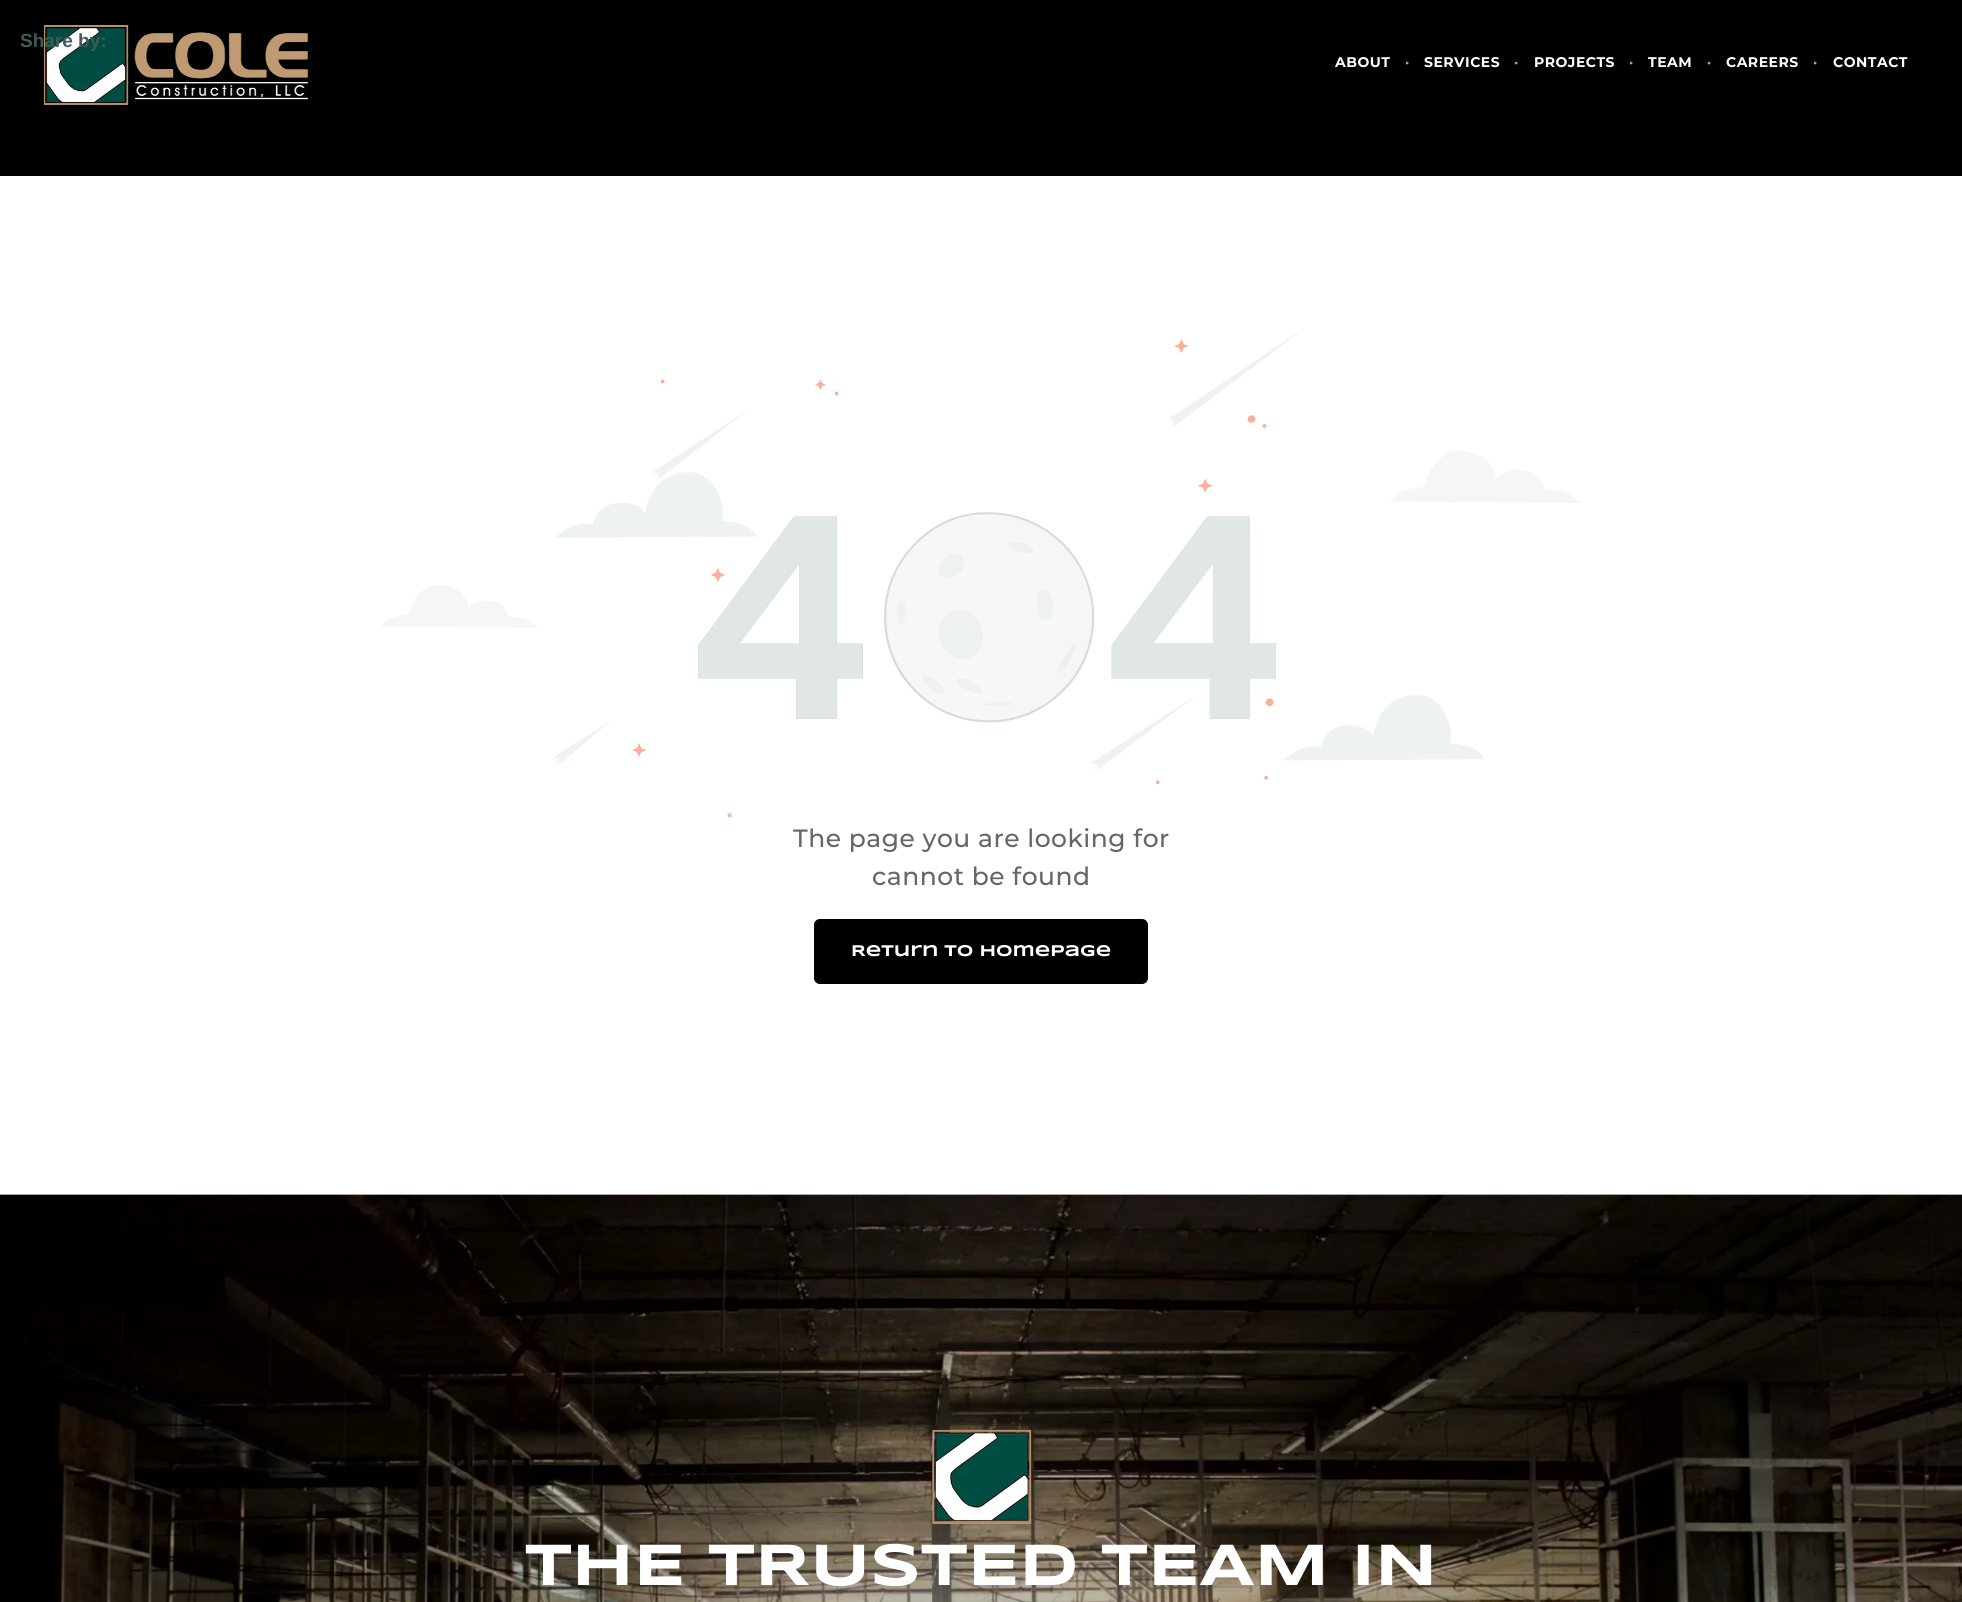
#include <cairo.h>
#include <math.h>
#include <stddef.h>


static void rgb(cairo_t *cr, int r, int g, int b)
{
	cairo_set_source_rgb(cr, r / 255.0, g / 255.0, b / 255.0);
}

static void face(cairo_t *cr, const char *family, double size, int italic, int bold)
{
	cairo_select_font_face(cr, family, italic ? CAIRO_FONT_SLANT_ITALIC : CAIRO_FONT_SLANT_NORMAL,
		bold ? CAIRO_FONT_WEIGHT_BOLD : CAIRO_FONT_WEIGHT_NORMAL);
	cairo_set_font_size(cr, size);
}

static void label(cairo_t *cr, double x, double y, const char *s)
{
	cairo_move_to(cr, x, y);
	cairo_show_text(cr, s);
}

static void tracked(cairo_t *cr, double x, double y, const char *s, double letter, double word)
{
	cairo_move_to(cr, x, y);
	while (*s) {
		char ch[5] = {0};
		int n = 0;
		do ch[n++] = *s++; while ((*s & 0xC0) == 0x80);
		cairo_show_text(cr, ch);
		cairo_rel_move_to(cr, letter + word * (*ch == ' '), 0);
	}
}

static void rect(cairo_t *cr, double x, double y, double w, double h)
{
	cairo_rectangle(cr, x, y, w, h);
	cairo_fill(cr);
}

static void rrect(cairo_t *cr, double x, double y, double w, double h, double r)
{
	cairo_new_sub_path(cr);
	cairo_arc(cr, x + w - r, y + h - r, r, 0, M_PI / 2);
	cairo_arc(cr, x + r, y + h - r, r, M_PI / 2, M_PI);
	cairo_arc(cr, x + r, y + r, r, M_PI, 1.5 * M_PI);
	cairo_arc(cr, x + w - r, y + r, r, 1.5 * M_PI, 2 * M_PI);
	cairo_close_path(cr);
}

static void image(cairo_t *cr, const char *path, double x, double y, double w, double h)
{
	cairo_surface_t *image = cairo_image_surface_create_from_png(path);
	cairo_save(cr);
	cairo_set_source_surface(cr, image, x, y);
	cairo_rectangle(cr, x, y, w, h);
	cairo_fill(cr);
	cairo_restore(cr);
	cairo_surface_destroy(image);
}

static void draw(cairo_t *cr) {
	rgb(cr, 0, 0, 0);
	cairo_paint(cr);
	image(cr, "image0.png", 43, 25, 266, 80);
	face(cr, "Liberation Sans", 19, 0, 1);
	rgb(cr, 63, 90, 87);
	label(cr, 20, 47, "Share by:");
	face(cr, "Montserrat", 14, 0, 1);
	rgb(cr, 255, 255, 255);
	tracked(cr, 1335, 67, "ABOUT", 0.5, 0);
	rgb(cr, 191, 154, 114);
	label(cr, 1405, 67, "·");
	rgb(cr, 255, 255, 255);
	tracked(cr, 1424, 67, "SERVICES", 0.5, 0);
	rgb(cr, 191, 154, 114);
	label(cr, 1514, 67, "·");
	rgb(cr, 255, 255, 255);
	tracked(cr, 1534, 67, "PROJECTS", 0.5, 0);
	rgb(cr, 191, 154, 114);
	label(cr, 1629, 67, "·");
	rgb(cr, 255, 255, 255);
	tracked(cr, 1648, 67, "TEAM", 0.5, 0);
	rgb(cr, 191, 154, 114);
	label(cr, 1707, 67, "·");
	rgb(cr, 255, 255, 255);
	tracked(cr, 1726, 67, "CAREERS", 0.5, 0);
	rgb(cr, 191, 154, 114);
	label(cr, 1813, 67, "·");
	rgb(cr, 255, 255, 255);
	tracked(cr, 1833, 67, "CONTACT", 0.5, 0);
	rect(cr, 0, 176, 1962, 1018);
	image(cr, "image1.png", 381, 328, 1200, 490);
	face(cr, "Montserrat Medium", 25, 0, 0);
	rgb(cr, 102, 102, 102);
	tracked(cr, 793, 847, "The page you are looking for", 0.5, 0);
	tracked(cr, 872, 885, "cannot be found", 0.5, 0);
	rgb(cr, 0, 0, 0);
	rrect(cr, 814.5, 919.5, 333, 64, 5.5);
	cairo_fill_preserve(cr);
	cairo_set_line_width(cr, 1);
	cairo_stroke(cr);
	face(cr, "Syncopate", 16, 0, 1);
	rgb(cr, 255, 255, 255);
	label(cr, 851, 956, "Return to Homepage");
	rgb(cr, 184, 184, 184);
	rect(cr, 0, 1194, 1962, 1);
	image(cr, "image2.png", 0, 1194, 1962, 408);
	image(cr, "image3.png", 932, 1429, 100, 95);
	face(cr, "Syncopate", 60, 0, 1);
	rgb(cr, 255, 255, 255);
	label(cr, 525, 1585, "THE TRUSTED TEAM IN");
}

int main(void) {
	cairo_surface_t *surface = cairo_image_surface_create(CAIRO_FORMAT_RGB24, 1962, 1602);
	cairo_t *cr = cairo_create(surface);
	cairo_font_options_t *options = cairo_font_options_create();
	cairo_font_options_set_hint_metrics(options, CAIRO_HINT_METRICS_OFF);
	cairo_font_options_set_hint_style(options, CAIRO_HINT_STYLE_NONE);
	cairo_set_font_options(cr, options);
	cairo_set_miter_limit(cr, 4);
	draw(cr);
	cairo_surface_write_to_png(surface, "render.png");
	cairo_font_options_destroy(options);
	cairo_destroy(cr);
	cairo_surface_destroy(surface);
	return 0;
}
